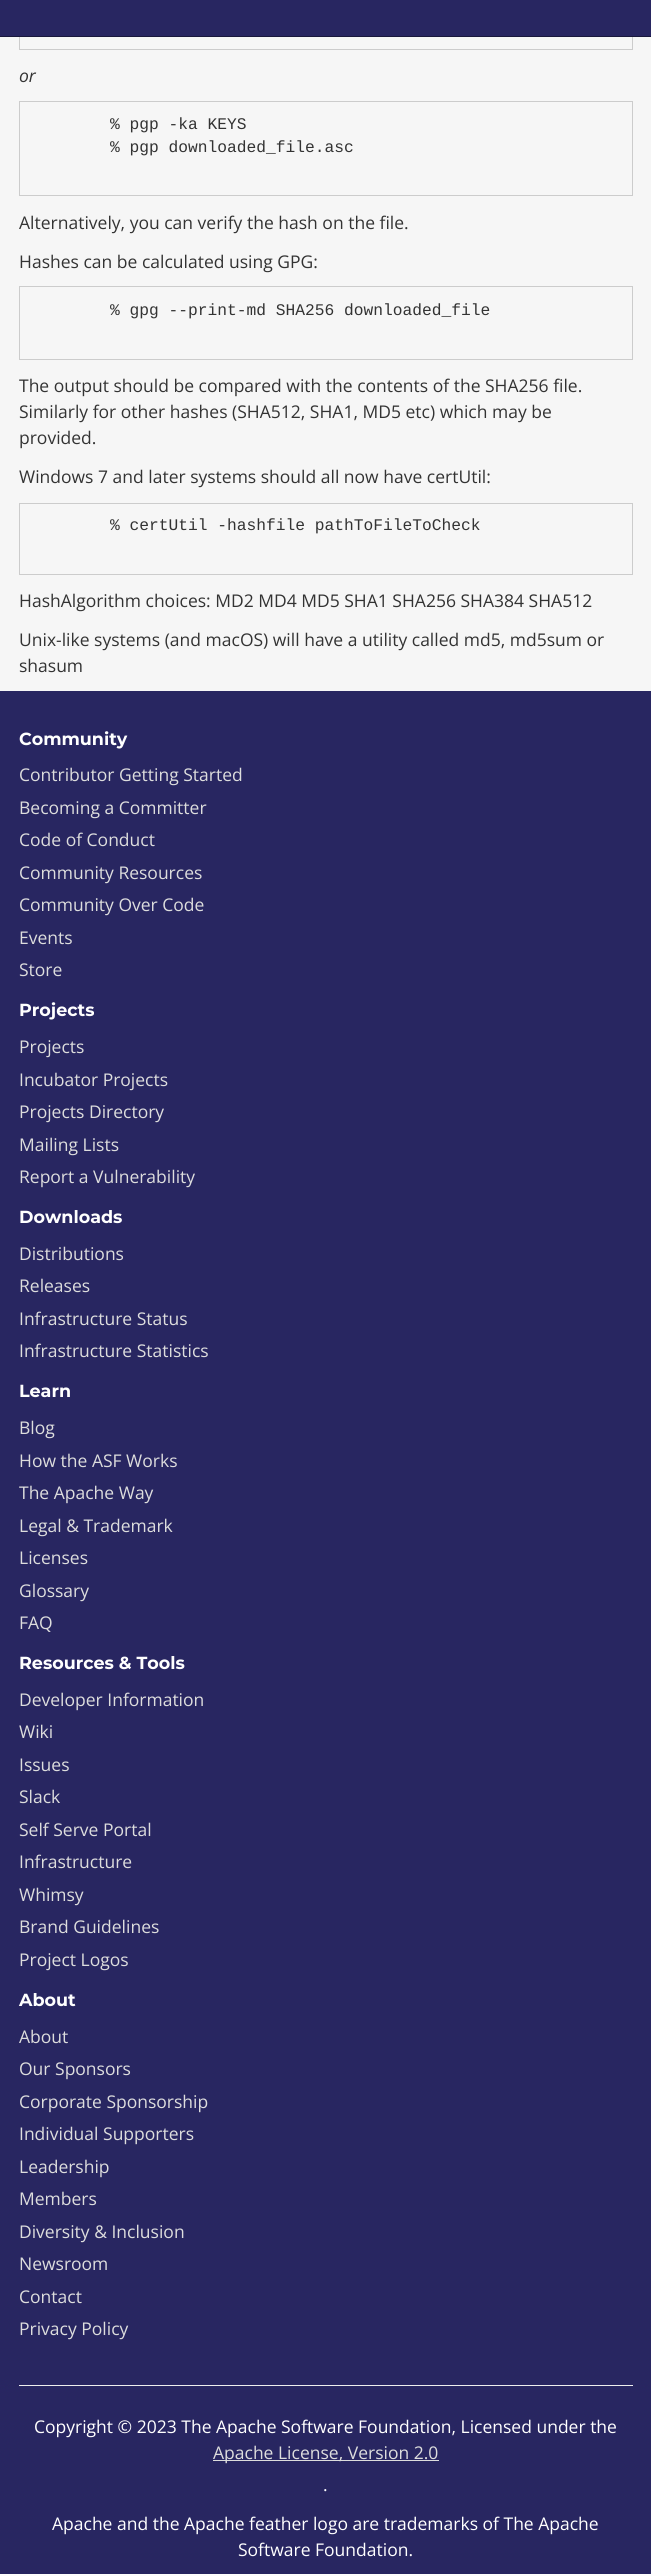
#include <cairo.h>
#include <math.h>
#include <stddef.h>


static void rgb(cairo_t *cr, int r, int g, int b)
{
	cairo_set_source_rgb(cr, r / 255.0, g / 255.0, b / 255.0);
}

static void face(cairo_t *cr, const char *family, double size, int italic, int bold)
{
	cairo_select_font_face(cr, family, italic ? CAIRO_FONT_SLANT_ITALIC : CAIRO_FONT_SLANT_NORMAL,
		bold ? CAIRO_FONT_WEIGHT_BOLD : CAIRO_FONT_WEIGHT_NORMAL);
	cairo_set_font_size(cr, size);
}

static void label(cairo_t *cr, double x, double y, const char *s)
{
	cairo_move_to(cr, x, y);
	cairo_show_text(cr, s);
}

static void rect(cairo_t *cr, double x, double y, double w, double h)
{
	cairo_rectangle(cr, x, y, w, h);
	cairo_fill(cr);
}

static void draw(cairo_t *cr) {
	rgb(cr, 246, 246, 246);
	cairo_paint(cr);
	cairo_rectangle(cr, 19.5, -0.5, 613, 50);
	rgb(cr, 204, 204, 204);
	cairo_set_line_width(cr, 1);
	cairo_stroke(cr);
	rgb(cr, 40, 38, 97);
	rect(cr, 0, 0, 651, 36);
	rgb(cr, 25, 24, 60);
	rect(cr, 0, 36, 651, 1);
	face(cr, "Open Sans", 17.5, 1, 0);
	rgb(cr, 51, 51, 51);
	label(cr, 19, 82, "or");
	cairo_rectangle(cr, 19.5, 101.5, 613, 94);
	rgb(cr, 204, 204, 204);
	cairo_stroke(cr);
	face(cr, "Liberation Mono", 16.25, 0, 0);
	rgb(cr, 51, 51, 51);
	label(cr, 110, 129, "% pgp -ka KEYS");
	label(cr, 110, 152, "% pgp downloaded_file.asc");
	face(cr, "Open Sans", 17.5, 0, 0);
	label(cr, 19, 229, "Alternatively, you can verify the hash on the file.");
	label(cr, 19, 268, "Hashes can be calculated using GPG:");
	cairo_rectangle(cr, 19.5, 286.5, 613, 73);
	rgb(cr, 204, 204, 204);
	cairo_stroke(cr);
	face(cr, "Liberation Mono", 16.25, 0, 0);
	rgb(cr, 51, 51, 51);
	label(cr, 110, 315, "% gpg --print-md SHA256 downloaded_file");
	face(cr, "Open Sans", 17.5, 0, 0);
	label(cr, 19, 392, "The output should be compared with the contents of the SHA256 file.");
	label(cr, 19, 418, "Similarly for other hashes (SHA512, SHA1, MD5 etc) which may be");
	label(cr, 19, 444, "provided.");
	label(cr, 19, 483, "Windows 7 and later systems should all now have certUtil:");
	cairo_rectangle(cr, 19.5, 503.5, 613, 71);
	rgb(cr, 204, 204, 204);
	cairo_stroke(cr);
	face(cr, "Liberation Mono", 16.25, 0, 0);
	rgb(cr, 51, 51, 51);
	label(cr, 110, 530, "% certUtil -hashfile pathToFileToCheck");
	face(cr, "Open Sans", 17.5, 0, 0);
	label(cr, 19, 607, "HashAlgorithm choices: MD2 MD4 MD5 SHA1 SHA256 SHA384 SHA512");
	label(cr, 19, 646, "Unix-like systems (and macOS) will have a utility called md5, md5sum or");
	label(cr, 19, 672, "shasum");
	rgb(cr, 40, 38, 97);
	rect(cr, 0, 691, 651, 1883);
	face(cr, "Montserrat", 17.5, 0, 1);
	rgb(cr, 255, 255, 255);
	label(cr, 19, 745, "Community");
	face(cr, "Open Sans", 17.5, 0, 0);
	rgb(cr, 221, 221, 221);
	label(cr, 19, 781, "Contributor Getting Started");
	label(cr, 19, 814, "Becoming a Committer");
	label(cr, 19, 846, "Code of Conduct");
	label(cr, 19, 879, "Community Resources");
	label(cr, 19, 911, "Community Over Code");
	label(cr, 19, 944, "Events");
	label(cr, 19, 976, "Store");
	face(cr, "Montserrat", 17.5, 0, 1);
	rgb(cr, 255, 255, 255);
	label(cr, 19, 1016, "Projects");
	face(cr, "Open Sans", 17.5, 0, 0);
	rgb(cr, 221, 221, 221);
	label(cr, 19, 1053, "Projects");
	label(cr, 19, 1086, "Incubator Projects");
	label(cr, 19, 1118, "Projects Directory");
	label(cr, 19, 1151, "Mailing Lists");
	label(cr, 19, 1183, "Report a Vulnerability");
	face(cr, "Montserrat", 17.5, 0, 1);
	rgb(cr, 255, 255, 255);
	label(cr, 19, 1223, "Downloads");
	face(cr, "Open Sans", 17.5, 0, 0);
	rgb(cr, 221, 221, 221);
	label(cr, 19, 1260, "Distributions");
	label(cr, 19, 1292, "Releases");
	label(cr, 19, 1325, "Infrastructure Status");
	label(cr, 19, 1357, "Infrastructure Statistics");
	face(cr, "Montserrat", 17.5, 0, 1);
	rgb(cr, 255, 255, 255);
	label(cr, 19, 1397, "Learn");
	face(cr, "Open Sans", 17.5, 0, 0);
	rgb(cr, 221, 221, 221);
	label(cr, 19, 1434, "Blog");
	label(cr, 19, 1467, "How the ASF Works");
	label(cr, 19, 1499, "The Apache Way");
	label(cr, 19, 1532, "Legal & Trademark");
	label(cr, 19, 1564, "Licenses");
	label(cr, 19, 1597, "Glossary");
	label(cr, 19, 1629, "FAQ");
	face(cr, "Montserrat", 17.5, 0, 1);
	rgb(cr, 255, 255, 255);
	label(cr, 19, 1669, "Resources & Tools");
	face(cr, "Open Sans", 17.5, 0, 0);
	rgb(cr, 221, 221, 221);
	label(cr, 19, 1706, "Developer Information");
	label(cr, 19, 1738, "Wiki");
	label(cr, 19, 1771, "Issues");
	label(cr, 19, 1803, "Slack");
	label(cr, 19, 1836, "Self Serve Portal");
	label(cr, 19, 1868, "Infrastructure");
	label(cr, 19, 1901, "Whimsy");
	label(cr, 19, 1933, "Brand Guidelines");
	label(cr, 19, 1966, "Project Logos");
	face(cr, "Montserrat", 17.5, 0, 1);
	rgb(cr, 255, 255, 255);
	label(cr, 19, 2006, "About");
	face(cr, "Open Sans", 17.5, 0, 0);
	rgb(cr, 221, 221, 221);
	label(cr, 19, 2043, "About");
	label(cr, 19, 2075, "Our Sponsors");
	label(cr, 19, 2108, "Corporate Sponsorship");
	label(cr, 19, 2140, "Individual Supporters");
	label(cr, 19, 2173, "Leadership");
	label(cr, 19, 2205, "Members");
	label(cr, 19, 2238, "Diversity & Inclusion");
	label(cr, 19, 2270, "Newsroom");
	label(cr, 19, 2303, "Contact");
	label(cr, 19, 2335, "Privacy Policy");
	rgb(cr, 238, 238, 238);
	rect(cr, 19, 2385, 614, 1);
	rgb(cr, 255, 255, 255);
	label(cr, 34, 2433, "Copyright © 2023 The Apache Software Foundation, Licensed under the");
	rgb(cr, 221, 221, 221);
	rect(cr, 213, 2460, 226, 1);
	label(cr, 213, 2459, "Apache License, Version 2.0");
	rgb(cr, 255, 255, 255);
	label(cr, 323, 2491, ".");
	label(cr, 52, 2530, "Apache and the Apache feather logo are trademarks of The Apache");
	label(cr, 238, 2556, "Software Foundation.");
}

int main(void) {
	cairo_surface_t *surface = cairo_image_surface_create(CAIRO_FORMAT_RGB24, 651, 2574);
	cairo_t *cr = cairo_create(surface);
	cairo_font_options_t *options = cairo_font_options_create();
	cairo_font_options_set_hint_metrics(options, CAIRO_HINT_METRICS_OFF);
	cairo_font_options_set_hint_style(options, CAIRO_HINT_STYLE_NONE);
	cairo_set_font_options(cr, options);
	cairo_set_miter_limit(cr, 4);
	draw(cr);
	cairo_surface_write_to_png(surface, "render.png");
	cairo_font_options_destroy(options);
	cairo_destroy(cr);
	cairo_surface_destroy(surface);
	return 0;
}
